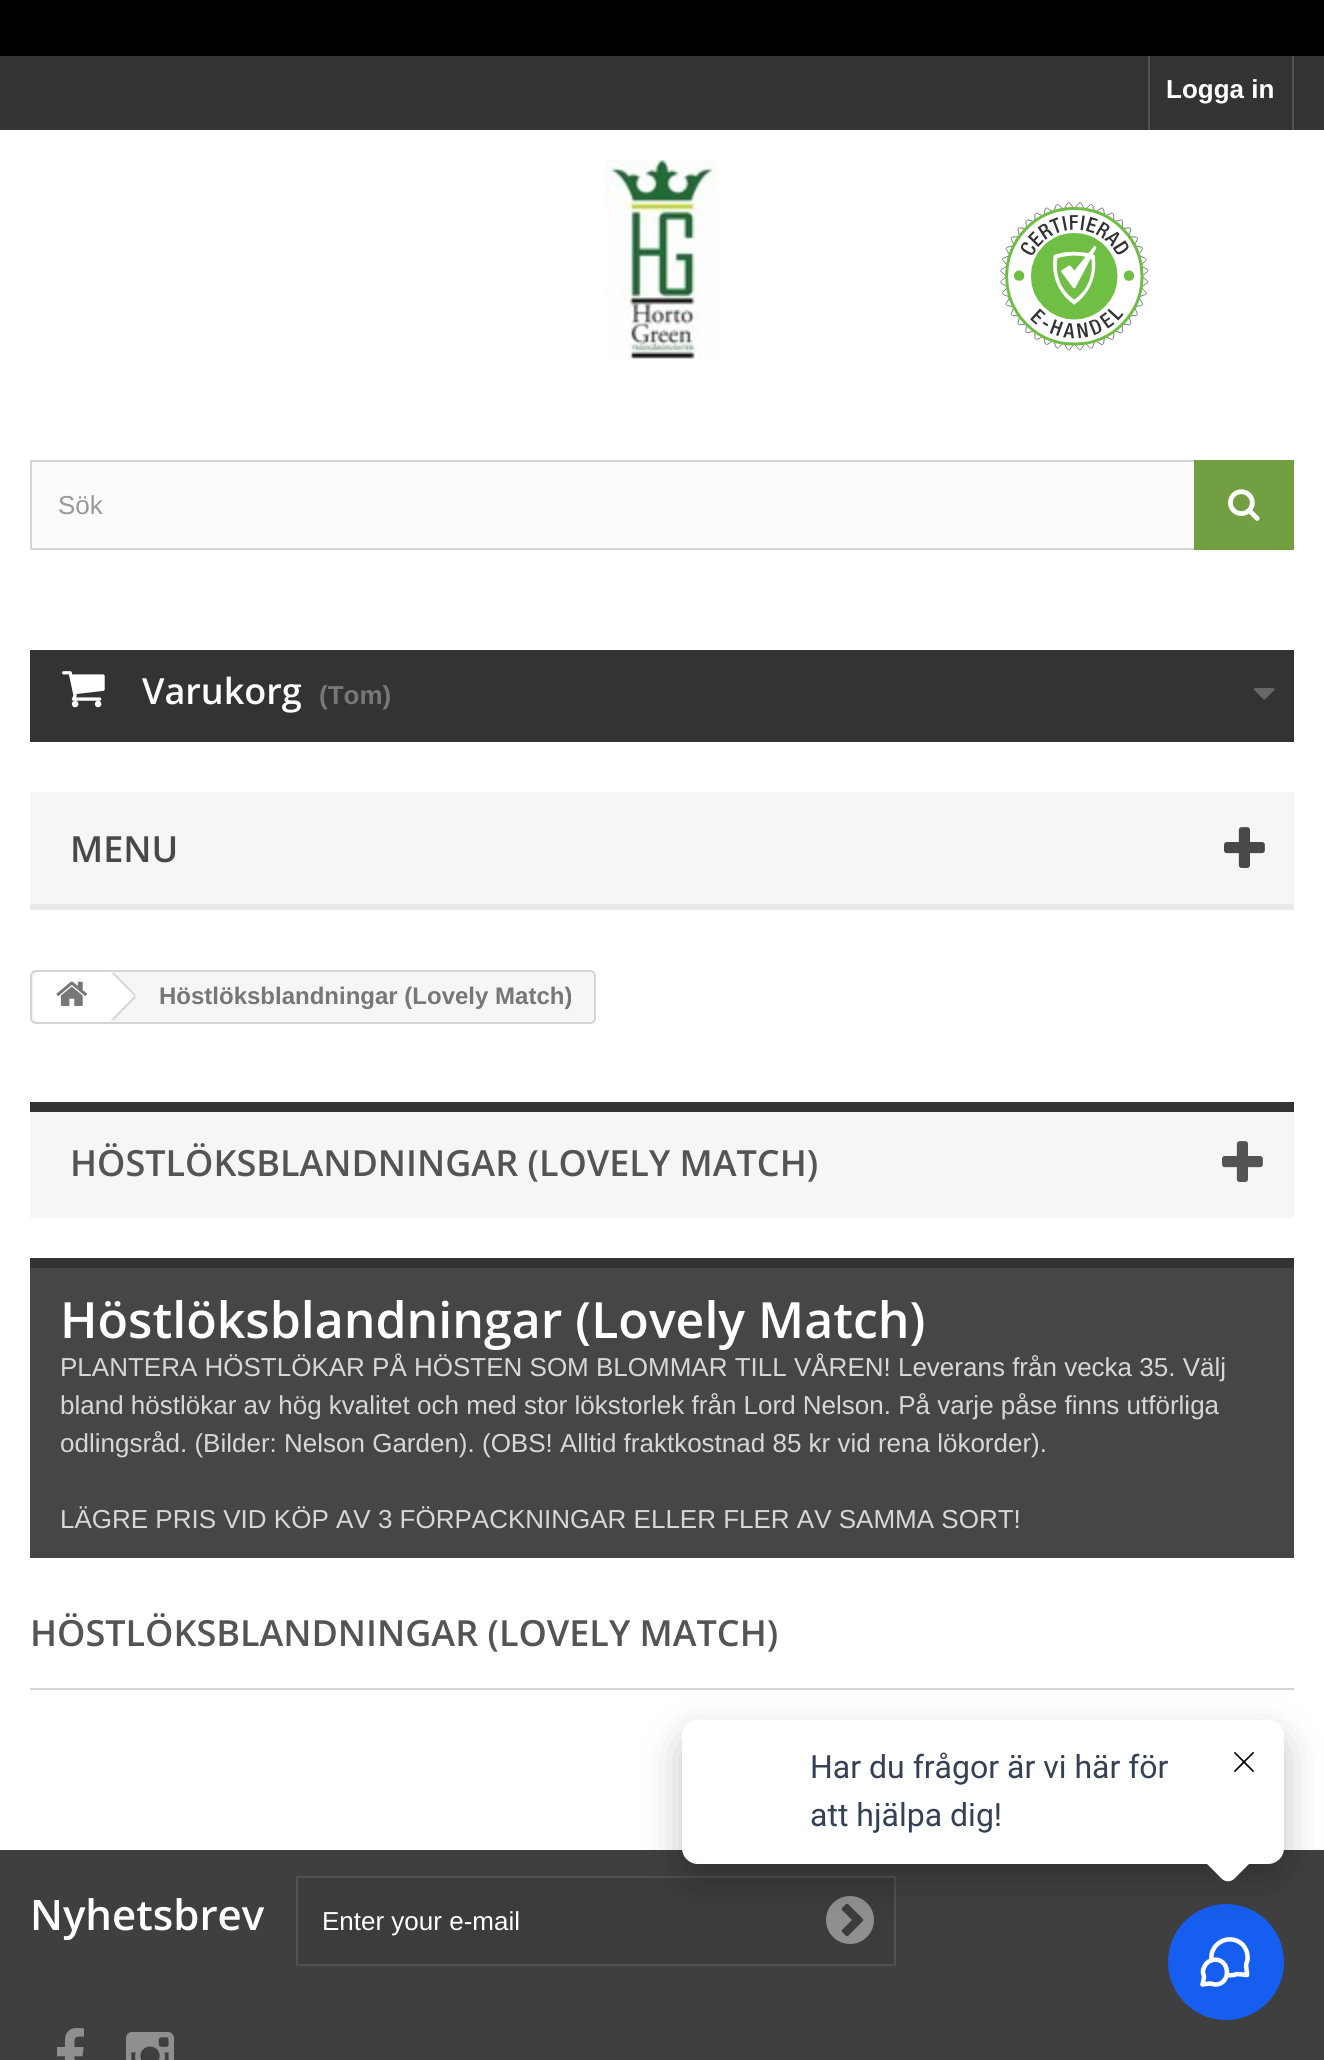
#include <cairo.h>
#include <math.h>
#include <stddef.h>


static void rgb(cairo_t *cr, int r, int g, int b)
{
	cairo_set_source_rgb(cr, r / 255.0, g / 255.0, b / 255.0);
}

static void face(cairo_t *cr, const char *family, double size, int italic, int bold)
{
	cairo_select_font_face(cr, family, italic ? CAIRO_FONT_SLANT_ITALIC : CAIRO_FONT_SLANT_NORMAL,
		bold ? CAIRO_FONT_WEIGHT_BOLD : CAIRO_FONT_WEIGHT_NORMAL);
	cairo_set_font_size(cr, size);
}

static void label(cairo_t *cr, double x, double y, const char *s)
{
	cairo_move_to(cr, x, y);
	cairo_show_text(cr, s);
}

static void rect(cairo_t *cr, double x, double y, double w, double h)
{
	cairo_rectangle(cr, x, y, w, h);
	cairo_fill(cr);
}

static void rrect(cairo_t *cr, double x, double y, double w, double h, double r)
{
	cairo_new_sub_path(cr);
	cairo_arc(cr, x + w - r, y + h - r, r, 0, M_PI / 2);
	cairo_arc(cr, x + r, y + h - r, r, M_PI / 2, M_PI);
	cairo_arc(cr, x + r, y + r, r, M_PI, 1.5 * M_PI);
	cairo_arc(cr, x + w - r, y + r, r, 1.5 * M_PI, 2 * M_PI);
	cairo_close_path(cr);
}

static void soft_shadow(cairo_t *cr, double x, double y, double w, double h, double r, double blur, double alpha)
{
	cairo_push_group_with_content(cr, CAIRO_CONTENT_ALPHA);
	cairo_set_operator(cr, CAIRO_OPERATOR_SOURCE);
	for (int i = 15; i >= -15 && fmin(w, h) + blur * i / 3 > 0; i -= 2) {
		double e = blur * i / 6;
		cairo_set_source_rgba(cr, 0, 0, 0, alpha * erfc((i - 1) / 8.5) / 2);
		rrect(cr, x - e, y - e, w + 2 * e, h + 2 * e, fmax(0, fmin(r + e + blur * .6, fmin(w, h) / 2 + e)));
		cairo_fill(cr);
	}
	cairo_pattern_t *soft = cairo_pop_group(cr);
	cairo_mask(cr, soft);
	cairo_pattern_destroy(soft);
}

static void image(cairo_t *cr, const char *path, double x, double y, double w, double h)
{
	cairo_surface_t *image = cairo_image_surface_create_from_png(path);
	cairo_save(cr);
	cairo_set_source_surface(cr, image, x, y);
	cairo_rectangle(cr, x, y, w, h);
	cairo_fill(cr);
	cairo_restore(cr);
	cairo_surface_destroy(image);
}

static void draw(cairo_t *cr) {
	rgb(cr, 255, 255, 255);
	cairo_paint(cr);
	rgb(cr, 0, 0, 0);
	rect(cr, 0, 0, 1324, 56);
	rgb(cr, 51, 51, 51);
	rect(cr, 0, 56, 1324, 74);
	rgb(cr, 81, 81, 81);
	rect(cr, 1292, 56, 2, 74);
	rect(cr, 1148, 56, 2, 74);
	face(cr, "Liberation Sans", 26, 0, 1);
	rgb(cr, 255, 255, 255);
	label(cr, 1166, 98, "Logga in");
	image(cr, "image0.png", 606, 160, 112, 200);
	image(cr, "image1.png", 1000, 202, 149, 149);
	rgb(cr, 251, 251, 251);
	rect(cr, 32, 462, 1162, 86);
	cairo_rectangle(cr, 31, 461, 1262, 88);
	rgb(cr, 214, 212, 212);
	cairo_stroke(cr);
	face(cr, "Liberation Sans", 26, 0, 0);
	rgb(cr, 153, 153, 153);
	label(cr, 58, 514, "Sök");
	rgb(cr, 113, 159, 65);
	rect(cr, 1194, 460, 100, 90);
	image(cr, "image2.png", 1228, 489, 32, 32);
	rgb(cr, 51, 51, 51);
	rect(cr, 30, 650, 1264, 92);
	image(cr, "image3.png", 62, 671, 43, 37);
	face(cr, "Open Sans SemiBold", 36, 0, 0);
	rgb(cr, 255, 255, 255);
	label(cr, 142, 704, "Varukorg");
	face(cr, "Liberation Sans", 26, 0, 1);
	rgb(cr, 119, 119, 119);
	label(cr, 319, 704, "(Tom)");
	image(cr, "image4.png", 1254, 688, 21, 12);
	rgb(cr, 246, 246, 246);
	rect(cr, 30, 792, 1264, 112);
	rgb(cr, 233, 233, 233);
	rect(cr, 30, 904, 1264, 6);
	face(cr, "Open Sans SemiBold", 36, 0, 0);
	rgb(cr, 72, 72, 72);
	label(cr, 70, 862, "MENU");
	image(cr, "image5.png", 1224, 827, 41, 41);
	rgb(cr, 246, 246, 246);
	rrect(cr, 31, 971, 564, 52, 5);
	cairo_fill_preserve(cr);
	rgb(cr, 214, 212, 212);
	cairo_stroke(cr);
	rgb(cr, 255, 255, 255);
	cairo_new_path(cr);
	cairo_move_to(cr, 40, 972);
	cairo_line_to(cr, 110, 972);
	cairo_line_to(cr, 110, 1022);
	cairo_line_to(cr, 40, 1022);
	cairo_curve_to(cr, 36.5, 1022, 34, 1019.5, 34, 1016);
	cairo_line_to(cr, 34, 978);
	cairo_curve_to(cr, 34, 974.5, 36.5, 972, 40, 972);
	cairo_close_path(cr);
	cairo_fill(cr);
	image(cr, "image6.png", 56, 981, 31, 25);
	cairo_new_path(cr);
	cairo_move_to(cr, 115, 974);
	cairo_line_to(cr, 135, 993);
	cairo_curve_to(cr, 136, 995, 136, 997, 135, 999);
	cairo_line_to(cr, 115, 1019);
	cairo_curve_to(cr, 113, 1020, 111, 1020, 109, 1019);
	cairo_line_to(cr, 89, 999);
	cairo_curve_to(cr, 88, 997, 88, 995, 89, 993);
	cairo_line_to(cr, 109, 974);
	cairo_curve_to(cr, 111, 972, 113, 972, 115, 974);
	cairo_close_path(cr);
	cairo_fill(cr);
	rgb(cr, 214, 212, 212);
	cairo_new_path(cr);
	cairo_move_to(cr, 113.5, 972);
	cairo_line_to(cr, 136, 995);
	cairo_line_to(cr, 134.5, 996);
	cairo_line_to(cr, 112, 973.5);
	cairo_close_path(cr);
	cairo_move_to(cr, 134.5, 996);
	cairo_line_to(cr, 136, 997.5);
	cairo_line_to(cr, 113.5, 1020.5);
	cairo_line_to(cr, 112, 1019);
	cairo_close_path(cr);
	cairo_fill(cr);
	face(cr, "Liberation Sans", 24, 0, 1);
	rgb(cr, 119, 119, 119);
	label(cr, 159, 1004, "Höstlöksblandningar (Lovely Match)");
	rgb(cr, 246, 246, 246);
	rect(cr, 30, 1112, 1264, 106);
	rgb(cr, 51, 51, 51);
	rect(cr, 30, 1102, 1264, 10);
	face(cr, "Open Sans SemiBold", 36, 0, 0);
	rgb(cr, 85, 84, 84);
	label(cr, 70, 1176, "HÖSTLÖKSBLANDNINGAR (LOVELY MATCH)");
	image(cr, "image7.png", 1222, 1141, 41, 41);
	rgb(cr, 51, 51, 51);
	rect(cr, 30, 1258, 1264, 10);
	rgb(cr, 70, 70, 70);
	rect(cr, 30, 1268, 1264, 290);
	face(cr, "Open Sans SemiBold", 50, 0, 0);
	rgb(cr, 255, 255, 255);
	label(cr, 60, 1338, "Höstlöksblandningar (Lovely Match)");
	face(cr, "Liberation Sans", 26, 0, 0);
	rgb(cr, 215, 215, 215);
	label(cr, 60, 1376, "PLANTERA HÖSTLÖKAR PÅ HÖSTEN SOM BLOMMAR TILL VÅREN! Leverans från vecka 35. Välj");
	label(cr, 60, 1414, "bland höstlökar av hög kvalitet och med stor lökstorlek från Lord Nelson. På varje påse finns utförliga");
	label(cr, 60, 1452, "odlingsråd. (Bilder: Nelson Garden). (OBS! Alltid fraktkostnad 85 kr vid rena lökorder).");
	label(cr, 60, 1528, "LÄGRE PRIS VID KÖP AV 3 FÖRPACKNINGAR ELLER FLER AV SAMMA SORT!");
	rgb(cr, 214, 212, 212);
	rect(cr, 30, 1688, 1264, 2);
	face(cr, "Open Sans SemiBold", 36, 0, 0);
	rgb(cr, 85, 84, 84);
	label(cr, 30, 1646, "HÖSTLÖKSBLANDNINGAR (LOVELY MATCH)");
	rgb(cr, 63, 63, 63);
	rect(cr, 0, 1850, 1324, 210);
	face(cr, "Open Sans SemiBold", 42, 0, 0);
	rgb(cr, 255, 255, 255);
	label(cr, 30, 1930, "Nyhetsbrev");
	rgb(cr, 60, 60, 60);
	cairo_rectangle(cr, 297, 1877, 598, 88);
	cairo_fill_preserve(cr);
	rgb(cr, 81, 81, 81);
	cairo_stroke(cr);
	face(cr, "Liberation Sans", 26, 0, 0);
	rgb(cr, 255, 255, 255);
	label(cr, 322, 1930, "Enter your e-mail");
	image(cr, "image8.png", 826, 1896, 48, 48);
	image(cr, "image9.png", 57, 2028, 27, 32);
	image(cr, "image10.png", 126, 2032, 48, 28);
	rgb(cr, 21, 94, 239);
	cairo_arc(cr, 1226, 1962, 58, 0, 2 * M_PI);
	cairo_fill(cr);
	cairo_new_path(cr);
	cairo_move_to(cr, 1211.5, 1960.5);
	cairo_curve_to(cr, 1209, 1943, 1230, 1932.5, 1242.5, 1944.5);
	cairo_curve_to(cr, 1246, 1948.5, 1247.5, 1952.5, 1247.5, 1957.5);
	cairo_curve_to(cr, 1248, 1960, 1246.5, 1962.5, 1246, 1965);
	cairo_line_to(cr, 1247, 1973.5);
	cairo_line_to(cr, 1247, 1975);
	cairo_line_to(cr, 1237.5, 1974);
	cairo_line_to(cr, 1233.5, 1975);
	cairo_line_to(cr, 1226.5, 1975.5);
	cairo_move_to(cr, 1215, 1984.5);
	cairo_curve_to(cr, 1232.5, 1984.5, 1230, 1956.5, 1212.5, 1960);
	cairo_curve_to(cr, 1208.5, 1961, 1205.5, 1963.5, 1204, 1967.5);
	cairo_curve_to(cr, 1201.5, 1973, 1204, 1973.5, 1204, 1977.5);
	cairo_line_to(cr, 1202.5, 1984.5);
	cairo_line_to(cr, 1210, 1983.5);
	cairo_close_path(cr);
	rgb(cr, 255, 255, 255);
	cairo_set_line_width(cr, 4.5);
	cairo_set_line_cap(cr, CAIRO_LINE_CAP_ROUND);
	cairo_set_line_join(cr, CAIRO_LINE_JOIN_ROUND);
	cairo_stroke(cr);
	rgb(cr, 0, 0, 0);
	soft_shadow(cr, 682, 1736, 602, 144, 16, 20, 0.24);
	rgb(cr, 255, 255, 255);
	rrect(cr, 682, 1720, 602, 144, 16);
	cairo_fill(cr);
	face(cr, "Roboto", 32, 0, 0);
	rgb(cr, 52, 64, 84);
	label(cr, 810, 1778, "Har du frågor är vi här för");
	label(cr, 810, 1826, "att hjälpa dig!");
	rgb(cr, 255, 255, 255);
	cairo_new_path(cr);
	cairo_move_to(cr, 1234, 1833);
	cairo_line_to(cr, 1251, 1850);
	cairo_curve_to(cr, 1254, 1853, 1254, 1859, 1251, 1862);
	cairo_line_to(cr, 1234, 1879);
	cairo_curve_to(cr, 1231, 1882, 1225, 1882, 1222, 1879);
	cairo_line_to(cr, 1205, 1862);
	cairo_curve_to(cr, 1202, 1859, 1202, 1853, 1205, 1850);
	cairo_line_to(cr, 1222, 1833);
	cairo_curve_to(cr, 1225, 1830, 1231, 1830, 1234, 1833);
	cairo_close_path(cr);
	cairo_fill(cr);
	image(cr, "image11.png", 1234, 1752, 20, 20);
}

int main(void) {
	cairo_surface_t *surface = cairo_image_surface_create(CAIRO_FORMAT_RGB24, 1324, 2060);
	cairo_t *cr = cairo_create(surface);
	cairo_font_options_t *options = cairo_font_options_create();
	cairo_font_options_set_hint_metrics(options, CAIRO_HINT_METRICS_OFF);
	cairo_font_options_set_hint_style(options, CAIRO_HINT_STYLE_NONE);
	cairo_set_font_options(cr, options);
	cairo_set_miter_limit(cr, 4);
	draw(cr);
	cairo_surface_write_to_png(surface, "render.png");
	cairo_font_options_destroy(options);
	cairo_destroy(cr);
	cairo_surface_destroy(surface);
	return 0;
}
